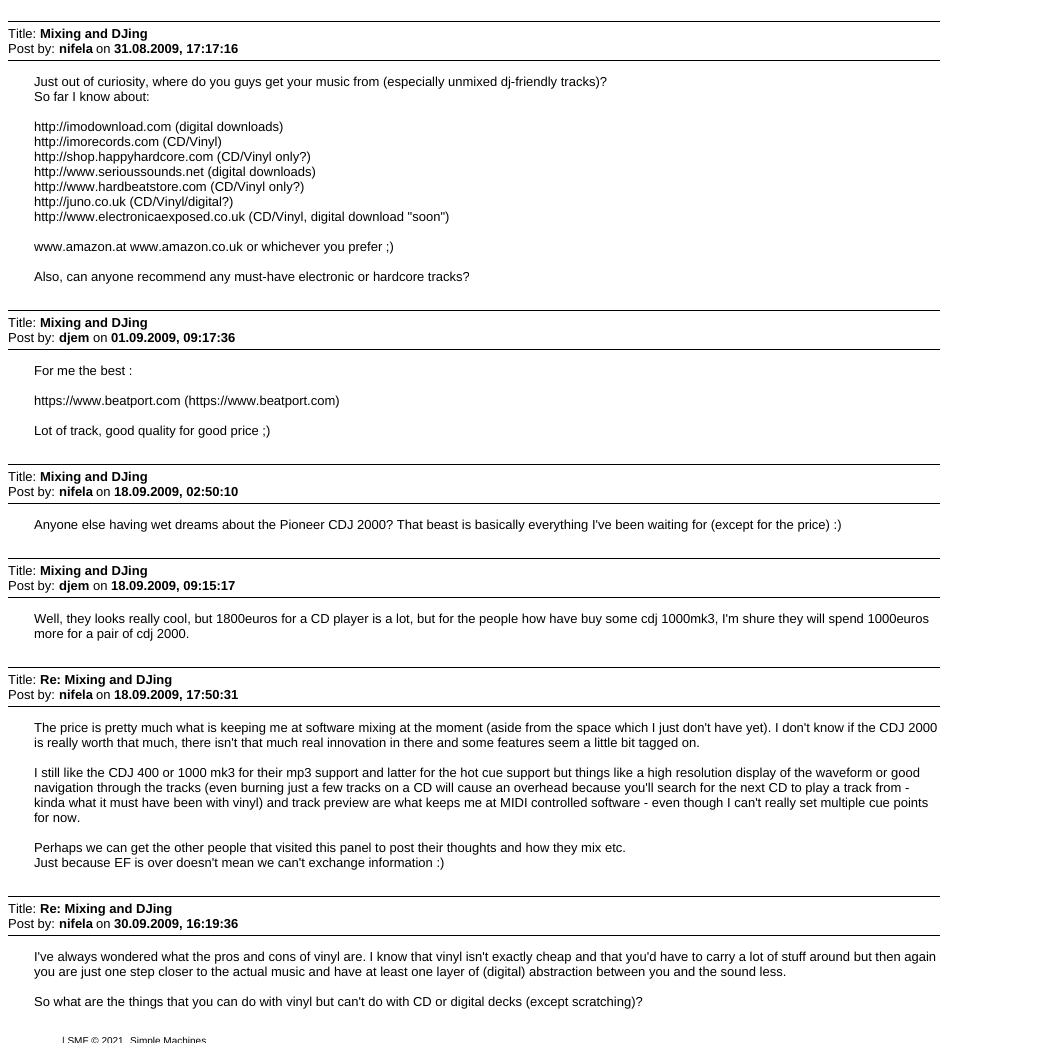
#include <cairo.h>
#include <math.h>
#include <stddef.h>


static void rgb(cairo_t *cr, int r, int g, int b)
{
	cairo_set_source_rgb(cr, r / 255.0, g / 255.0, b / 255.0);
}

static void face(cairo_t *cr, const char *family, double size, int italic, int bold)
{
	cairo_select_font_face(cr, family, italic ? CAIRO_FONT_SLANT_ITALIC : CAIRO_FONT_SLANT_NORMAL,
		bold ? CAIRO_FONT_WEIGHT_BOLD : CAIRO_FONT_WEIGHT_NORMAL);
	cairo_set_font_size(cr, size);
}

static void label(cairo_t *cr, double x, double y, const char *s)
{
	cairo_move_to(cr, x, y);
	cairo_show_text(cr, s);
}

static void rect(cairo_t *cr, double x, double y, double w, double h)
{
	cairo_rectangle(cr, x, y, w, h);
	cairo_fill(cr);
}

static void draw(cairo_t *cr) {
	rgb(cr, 255, 255, 255);
	cairo_paint(cr);
	rgb(cr, 0, 0, 0);
	rect(cr, 8, 21, 932, 1);
	rect(cr, 8, 60, 932, 1);
	face(cr, "Liberation Sans", 13, 0, 0);
	label(cr, 8, 38, "Title:");
	face(cr, "Liberation Sans", 13, 0, 1);
	label(cr, 40, 38, "Mixing and DJing");
	face(cr, "Liberation Sans", 13, 0, 0);
	label(cr, 8, 53, "Post by:");
	face(cr, "Liberation Sans", 13, 0, 1);
	label(cr, 59, 53, "nifela");
	face(cr, "Liberation Sans", 13, 0, 0);
	label(cr, 96, 53, "on");
	face(cr, "Liberation Sans", 13, 0, 1);
	label(cr, 114, 53, "31.08.2009, 17:17:16");
	face(cr, "Liberation Sans", 13, 0, 0);
	label(cr, 34, 86, "Just out of curiosity, where do you guys get your music from (especially unmixed dj-friendly tracks)?");
	label(cr, 34, 101, "So far I know about:");
	label(cr, 34, 131, "http://imodownload.com (digital downloads)");
	label(cr, 34, 146, "http://imorecords.com (CD/Vinyl)");
	label(cr, 34, 161, "http://shop.happyhardcore.com (CD/Vinyl only?)");
	label(cr, 34, 176, "http://www.serioussounds.net (digital downloads)");
	label(cr, 34, 191, "http://www.hardbeatstore.com (CD/Vinyl only?)");
	label(cr, 34, 206, "http://juno.co.uk (CD/Vinyl/digital?)");
	label(cr, 34, 221, "http://www.electronicaexposed.co.uk (CD/Vinyl, digital download \"soon\")");
	label(cr, 34, 251, "www.amazon.at www.amazon.co.uk or whichever you prefer ;)");
	label(cr, 34, 281, "Also, can anyone recommend any must-have electronic or hardcore tracks?");
	rect(cr, 8, 310, 932, 1);
	rect(cr, 8, 349, 932, 1);
	label(cr, 8, 327, "Title:");
	face(cr, "Liberation Sans", 13, 0, 1);
	label(cr, 40, 327, "Mixing and DJing");
	face(cr, "Liberation Sans", 13, 0, 0);
	label(cr, 8, 342, "Post by:");
	face(cr, "Liberation Sans", 13, 0, 1);
	label(cr, 59, 342, "djem");
	face(cr, "Liberation Sans", 13, 0, 0);
	label(cr, 93, 342, "on");
	face(cr, "Liberation Sans", 13, 0, 1);
	label(cr, 111, 342, "01.09.2009, 09:17:36");
	face(cr, "Liberation Sans", 13, 0, 0);
	label(cr, 34, 375, "For me the best :");
	label(cr, 34, 405, "https://www.beatport.com (https://www.beatport.com)");
	label(cr, 34, 435, "Lot of track, good quality for good price ;)");
	rect(cr, 8, 464, 932, 1);
	rect(cr, 8, 503, 932, 1);
	label(cr, 8, 481, "Title:");
	face(cr, "Liberation Sans", 13, 0, 1);
	label(cr, 40, 481, "Mixing and DJing");
	face(cr, "Liberation Sans", 13, 0, 0);
	label(cr, 8, 496, "Post by:");
	face(cr, "Liberation Sans", 13, 0, 1);
	label(cr, 59, 496, "nifela");
	face(cr, "Liberation Sans", 13, 0, 0);
	label(cr, 96, 496, "on");
	face(cr, "Liberation Sans", 13, 0, 1);
	label(cr, 114, 496, "18.09.2009, 02:50:10");
	face(cr, "Liberation Sans", 13, 0, 0);
	label(cr, 34, 529, "Anyone else having wet dreams about the Pioneer CDJ 2000? That beast is basically everything I've been waiting for (except for the price) :)");
	rect(cr, 8, 558, 932, 1);
	rect(cr, 8, 597, 932, 1);
	label(cr, 8, 575, "Title:");
	face(cr, "Liberation Sans", 13, 0, 1);
	label(cr, 40, 575, "Mixing and DJing");
	face(cr, "Liberation Sans", 13, 0, 0);
	label(cr, 8, 590, "Post by:");
	face(cr, "Liberation Sans", 13, 0, 1);
	label(cr, 59, 590, "djem");
	face(cr, "Liberation Sans", 13, 0, 0);
	label(cr, 93, 590, "on");
	face(cr, "Liberation Sans", 13, 0, 1);
	label(cr, 111, 590, "18.09.2009, 09:15:17");
	face(cr, "Liberation Sans", 13, 0, 0);
	label(cr, 34, 623, "Well, they looks really cool, but 1800euros for a CD player is a lot, but for the people how have buy some cdj 1000mk3, I'm shure they will spend 1000euros");
	label(cr, 34, 638, "more for a pair of cdj 2000.");
	rect(cr, 8, 667, 932, 1);
	rect(cr, 8, 706, 932, 1);
	label(cr, 8, 684, "Title:");
	face(cr, "Liberation Sans", 13, 0, 1);
	label(cr, 40, 684, "Re: Mixing and DJing");
	face(cr, "Liberation Sans", 13, 0, 0);
	label(cr, 8, 699, "Post by:");
	face(cr, "Liberation Sans", 13, 0, 1);
	label(cr, 59, 699, "nifela");
	face(cr, "Liberation Sans", 13, 0, 0);
	label(cr, 96, 699, "on");
	face(cr, "Liberation Sans", 13, 0, 1);
	label(cr, 114, 699, "18.09.2009, 17:50:31");
	face(cr, "Liberation Sans", 13, 0, 0);
	label(cr, 34, 732, "The price is pretty much what is keeping me at software mixing at the moment (aside from the space which I just don't have yet). I don't know if the CDJ 2000");
	label(cr, 34, 747, "is really worth that much, there isn't that much real innovation in there and some features seem a little bit tagged on.");
	label(cr, 34, 777, "I still like the CDJ 400 or 1000 mk3 for their mp3 support and latter for the hot cue support but things like a high resolution display of the waveform or good");
	label(cr, 34, 792, "navigation through the tracks (even burning just a few tracks on a CD will cause an overhead because you'll search for the next CD to play a track from -");
	label(cr, 34, 807, "kinda what it must have been with vinyl) and track preview are what keeps me at MIDI controlled software - even though I can't really set multiple cue points");
	label(cr, 34, 822, "for now.");
	label(cr, 34, 852, "Perhaps we can get the other people that visited this panel to post their thoughts and how they mix etc.");
	label(cr, 34, 867, "Just because EF is over doesn't mean we can't exchange information :)");
	rect(cr, 8, 896, 932, 1);
	rect(cr, 8, 935, 932, 1);
	label(cr, 8, 913, "Title:");
	face(cr, "Liberation Sans", 13, 0, 1);
	label(cr, 40, 913, "Re: Mixing and DJing");
	face(cr, "Liberation Sans", 13, 0, 0);
	label(cr, 8, 928, "Post by:");
	face(cr, "Liberation Sans", 13, 0, 1);
	label(cr, 59, 928, "nifela");
	face(cr, "Liberation Sans", 13, 0, 0);
	label(cr, 96, 928, "on");
	face(cr, "Liberation Sans", 13, 0, 1);
	label(cr, 114, 928, "30.09.2009, 16:19:36");
	face(cr, "Liberation Sans", 13, 0, 0);
	label(cr, 34, 961, "I've always wondered what the pros and cons of vinyl are. I know that vinyl isn't exactly cheap and that you'd have to carry a lot of stuff around but then again");
	label(cr, 34, 976, "you are just one step closer to the actual music and have at least one layer of (digital) abstraction between you and the sound less.");
	label(cr, 34, 1006, "So what are the things that you can do with vinyl but can't do with CD or digital decks (except scratching)?");
	face(cr, "Liberation Sans", 10, 0, 0);
	label(cr, 62, 1044, "| SMF © 2021");
	label(cr, 130, 1044, "Simple Machines");
}

int main(void) {
	cairo_surface_t *surface = cairo_image_surface_create(CAIRO_FORMAT_RGB24, 1051, 1043);
	cairo_t *cr = cairo_create(surface);
	cairo_font_options_t *options = cairo_font_options_create();
	cairo_font_options_set_hint_metrics(options, CAIRO_HINT_METRICS_OFF);
	cairo_font_options_set_hint_style(options, CAIRO_HINT_STYLE_NONE);
	cairo_set_font_options(cr, options);
	cairo_set_miter_limit(cr, 4);
	draw(cr);
	cairo_surface_write_to_png(surface, "render.png");
	cairo_font_options_destroy(options);
	cairo_destroy(cr);
	cairo_surface_destroy(surface);
	return 0;
}
